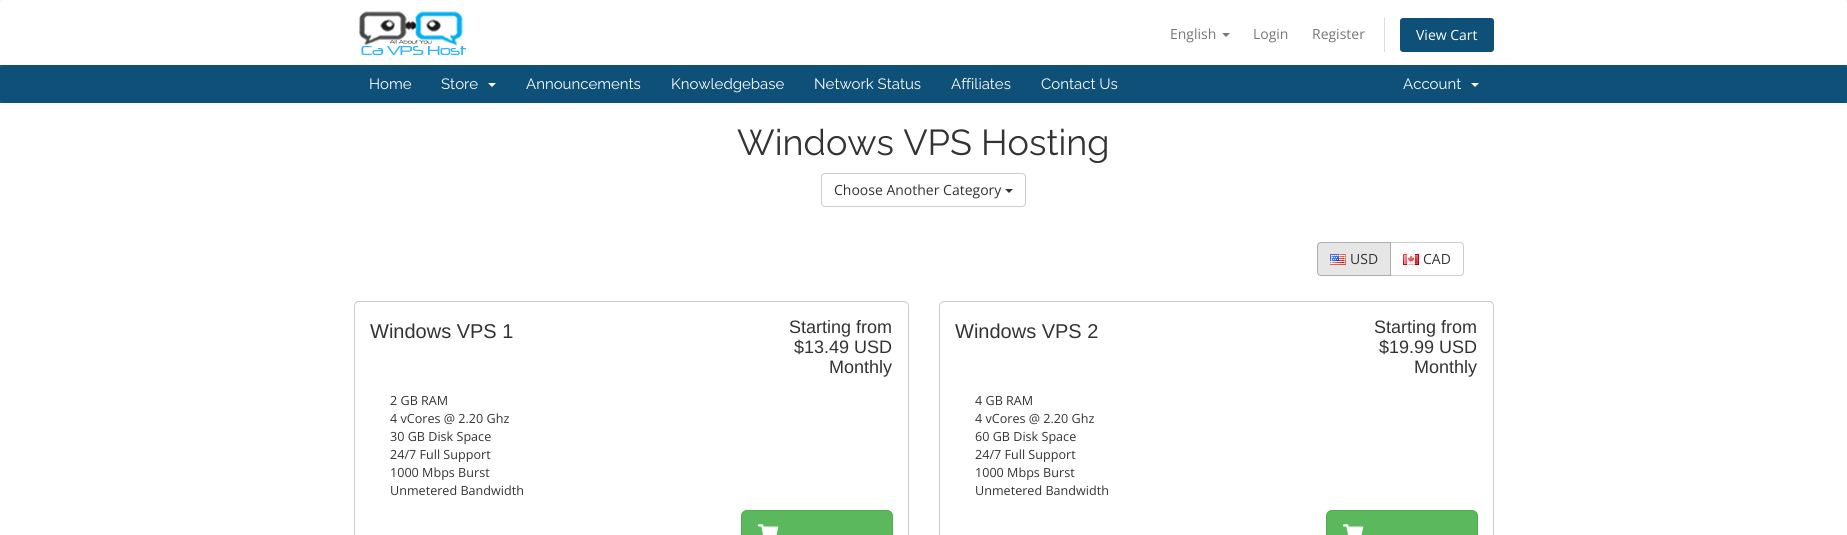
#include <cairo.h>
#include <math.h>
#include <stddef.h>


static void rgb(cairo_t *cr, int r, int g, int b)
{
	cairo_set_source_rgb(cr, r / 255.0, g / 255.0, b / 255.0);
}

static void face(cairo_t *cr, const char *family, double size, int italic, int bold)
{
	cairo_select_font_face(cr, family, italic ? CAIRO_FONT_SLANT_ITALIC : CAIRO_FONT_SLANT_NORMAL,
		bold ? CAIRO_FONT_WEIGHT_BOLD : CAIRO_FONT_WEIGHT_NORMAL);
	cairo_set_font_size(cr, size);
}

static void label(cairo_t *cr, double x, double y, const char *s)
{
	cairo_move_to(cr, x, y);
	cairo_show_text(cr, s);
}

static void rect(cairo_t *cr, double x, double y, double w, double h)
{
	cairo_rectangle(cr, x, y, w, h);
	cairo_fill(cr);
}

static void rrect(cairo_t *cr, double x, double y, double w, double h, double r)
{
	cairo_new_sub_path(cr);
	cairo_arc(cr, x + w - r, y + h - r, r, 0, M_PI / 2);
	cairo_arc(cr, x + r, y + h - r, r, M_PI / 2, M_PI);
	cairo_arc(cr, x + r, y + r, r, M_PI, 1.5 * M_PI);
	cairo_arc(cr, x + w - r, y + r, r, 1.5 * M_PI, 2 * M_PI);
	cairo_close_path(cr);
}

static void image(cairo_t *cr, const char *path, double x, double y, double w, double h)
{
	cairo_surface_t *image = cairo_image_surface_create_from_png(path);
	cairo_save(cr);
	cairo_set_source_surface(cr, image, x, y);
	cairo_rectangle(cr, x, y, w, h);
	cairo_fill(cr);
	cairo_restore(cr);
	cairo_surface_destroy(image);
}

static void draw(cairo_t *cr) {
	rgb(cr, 248, 248, 248);
	cairo_paint(cr);
	rgb(cr, 255, 255, 255);
	cairo_new_path(cr);
	cairo_move_to(cr, 5, 0);
	cairo_line_to(cr, 1842, 0);
	cairo_curve_to(cr, 1845, 0, 1847, 2, 1847, 5);
	cairo_line_to(cr, 1847, 65);
	cairo_line_to(cr, 0, 65);
	cairo_line_to(cr, 0, 5);
	cairo_curve_to(cr, 0, 2, 2, 0, 5, 0);
	cairo_close_path(cr);
	cairo_fill(cr);
	image(cr, "image0.png", 358, 11, 108, 44);
	face(cr, "Open Sans", 14, 0, 0);
	rgb(cr, 119, 119, 119);
	label(cr, 1170, 39, "English");
	cairo_new_path(cr);
	cairo_move_to(cr, 1222, 33);
	cairo_line_to(cr, 1230, 33);
	cairo_line_to(cr, 1226, 37);
	cairo_close_path(cr);
	cairo_fill(cr);
	label(cr, 1253, 39, "Login");
	label(cr, 1312, 39, "Register");
	rgb(cr, 221, 221, 221);
	rect(cr, 1384, 18, 1, 34);
	rgb(cr, 14, 80, 119);
	rrect(cr, 1400, 18, 94, 34, 3);
	cairo_fill(cr);
	rgb(cr, 255, 255, 255);
	label(cr, 1416, 40, "View Cart");
	rgb(cr, 0, 102, 135);
	rect(cr, 0, 65, 1847, 38);
	rgb(cr, 14, 80, 119);
	rrect(cr, 0, 65, 1847, 38, 4);
	cairo_fill(cr);
	face(cr, "Raleway", 15, 0, 0);
	rgb(cr, 255, 255, 255);
	label(cr, 369, 89, "Home");
	label(cr, 441, 89, "Store");
	cairo_new_path(cr);
	cairo_move_to(cr, 488, 83);
	cairo_line_to(cr, 496, 83);
	cairo_line_to(cr, 492, 87);
	cairo_close_path(cr);
	cairo_fill(cr);
	label(cr, 526, 89, "Announcements");
	label(cr, 671, 89, "Knowledgebase");
	label(cr, 814, 89, "Network Status");
	label(cr, 951, 89, "Affiliates");
	label(cr, 1041, 89, "Contact Us");
	label(cr, 1403, 89, "Account");
	cairo_new_path(cr);
	cairo_move_to(cr, 1471, 83);
	cairo_line_to(cr, 1479, 83);
	cairo_line_to(cr, 1475, 87);
	cairo_close_path(cr);
	cairo_fill(cr);
	rect(cr, 0, 103, 1847, 432);
	face(cr, "Raleway", 36, 0, 0);
	rgb(cr, 51, 51, 51);
	label(cr, 737, 155, "Windows VPS Hosting");
	rrect(cr, 821.5, 173.5, 204, 33, 3.5);
	rgb(cr, 204, 204, 204);
	cairo_set_line_width(cr, 1);
	cairo_stroke(cr);
	face(cr, "Open Sans", 14, 0, 0);
	rgb(cr, 51, 51, 51);
	label(cr, 834, 195, "Choose Another Category");
	cairo_new_path(cr);
	cairo_move_to(cr, 1005, 189);
	cairo_line_to(cr, 1013, 189);
	cairo_line_to(cr, 1009, 193);
	cairo_close_path(cr);
	cairo_fill(cr);
	cairo_new_path(cr);
	cairo_move_to(cr, 1390.5, 242.5);
	cairo_line_to(cr, 1460, 242.5);
	cairo_curve_to(cr, 1462, 242.5, 1463.5, 244, 1463.5, 246);
	cairo_line_to(cr, 1463.5, 272);
	cairo_curve_to(cr, 1463.5, 274, 1462, 275.5, 1460, 275.5);
	cairo_line_to(cr, 1390.5, 275.5);
	cairo_close_path(cr);
	rgb(cr, 204, 204, 204);
	cairo_stroke(cr);
	rgb(cr, 230, 230, 230);
	cairo_new_path(cr);
	cairo_move_to(cr, 1321, 242.5);
	cairo_line_to(cr, 1390.5, 242.5);
	cairo_line_to(cr, 1390.5, 275.5);
	cairo_line_to(cr, 1321, 275.5);
	cairo_curve_to(cr, 1319, 275.5, 1317.5, 274, 1317.5, 272);
	cairo_line_to(cr, 1317.5, 246);
	cairo_curve_to(cr, 1317.5, 244, 1319, 242.5, 1321, 242.5);
	cairo_close_path(cr);
	cairo_fill_preserve(cr);
	rgb(cr, 173, 173, 173);
	cairo_stroke(cr);
	image(cr, "image1.png", 1330, 254, 16, 11);
	rgb(cr, 51, 51, 51);
	label(cr, 1350, 264, "USD");
	image(cr, "image2.png", 1403, 254, 16, 11);
	label(cr, 1423, 264, "CAD");
	rrect(cr, 354.5, 301.5, 554, 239, 4.5);
	rgb(cr, 204, 204, 204);
	cairo_stroke(cr);
	face(cr, "Liberation Sans", 20, 0, 0);
	rgb(cr, 51, 51, 51);
	label(cr, 370, 338, "Windows VPS 1");
	face(cr, "Liberation Sans", 18, 0, 0);
	label(cr, 789, 333, "Starting from");
	label(cr, 794, 353, "$13.49 USD");
	label(cr, 829, 373, "Monthly");
	face(cr, "Open Sans", 12.6, 0, 0);
	label(cr, 390, 405, "2 GB RAM");
	label(cr, 390, 423, "4 vCores @ 2.20 Ghz");
	label(cr, 390, 441, "30 GB Disk Space");
	label(cr, 390, 459, "24/7 Full Support");
	label(cr, 390, 477, "1000 Mbps Burst");
	label(cr, 390, 495, "Unmetered Bandwidth");
	rgb(cr, 92, 184, 92);
	rrect(cr, 741.5, 510.5, 151, 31, 5.5);
	cairo_fill_preserve(cr);
	rgb(cr, 76, 174, 76);
	cairo_stroke(cr);
	image(cr, "image3.png", 758, 524, 21, 11);
	rrect(cr, 939.5, 301.5, 554, 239, 4.5);
	rgb(cr, 204, 204, 204);
	cairo_stroke(cr);
	face(cr, "Liberation Sans", 20, 0, 0);
	rgb(cr, 51, 51, 51);
	label(cr, 955, 338, "Windows VPS 2");
	face(cr, "Liberation Sans", 18, 0, 0);
	label(cr, 1374, 333, "Starting from");
	label(cr, 1379, 353, "$19.99 USD");
	label(cr, 1414, 373, "Monthly");
	face(cr, "Open Sans", 12.6, 0, 0);
	label(cr, 975, 405, "4 GB RAM");
	label(cr, 975, 423, "4 vCores @ 2.20 Ghz");
	label(cr, 975, 441, "60 GB Disk Space");
	label(cr, 975, 459, "24/7 Full Support");
	label(cr, 975, 477, "1000 Mbps Burst");
	label(cr, 975, 495, "Unmetered Bandwidth");
	rgb(cr, 92, 184, 92);
	rrect(cr, 1326.5, 510.5, 151, 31, 5.5);
	cairo_fill_preserve(cr);
	rgb(cr, 76, 174, 76);
	cairo_stroke(cr);
	image(cr, "image3.png", 1343, 524, 21, 11);
}

int main(void) {
	cairo_surface_t *surface = cairo_image_surface_create(CAIRO_FORMAT_RGB24, 1847, 535);
	cairo_t *cr = cairo_create(surface);
	cairo_font_options_t *options = cairo_font_options_create();
	cairo_font_options_set_hint_metrics(options, CAIRO_HINT_METRICS_OFF);
	cairo_font_options_set_hint_style(options, CAIRO_HINT_STYLE_NONE);
	cairo_set_font_options(cr, options);
	cairo_set_miter_limit(cr, 4);
	draw(cr);
	cairo_surface_write_to_png(surface, "render.png");
	cairo_font_options_destroy(options);
	cairo_destroy(cr);
	cairo_surface_destroy(surface);
	return 0;
}
